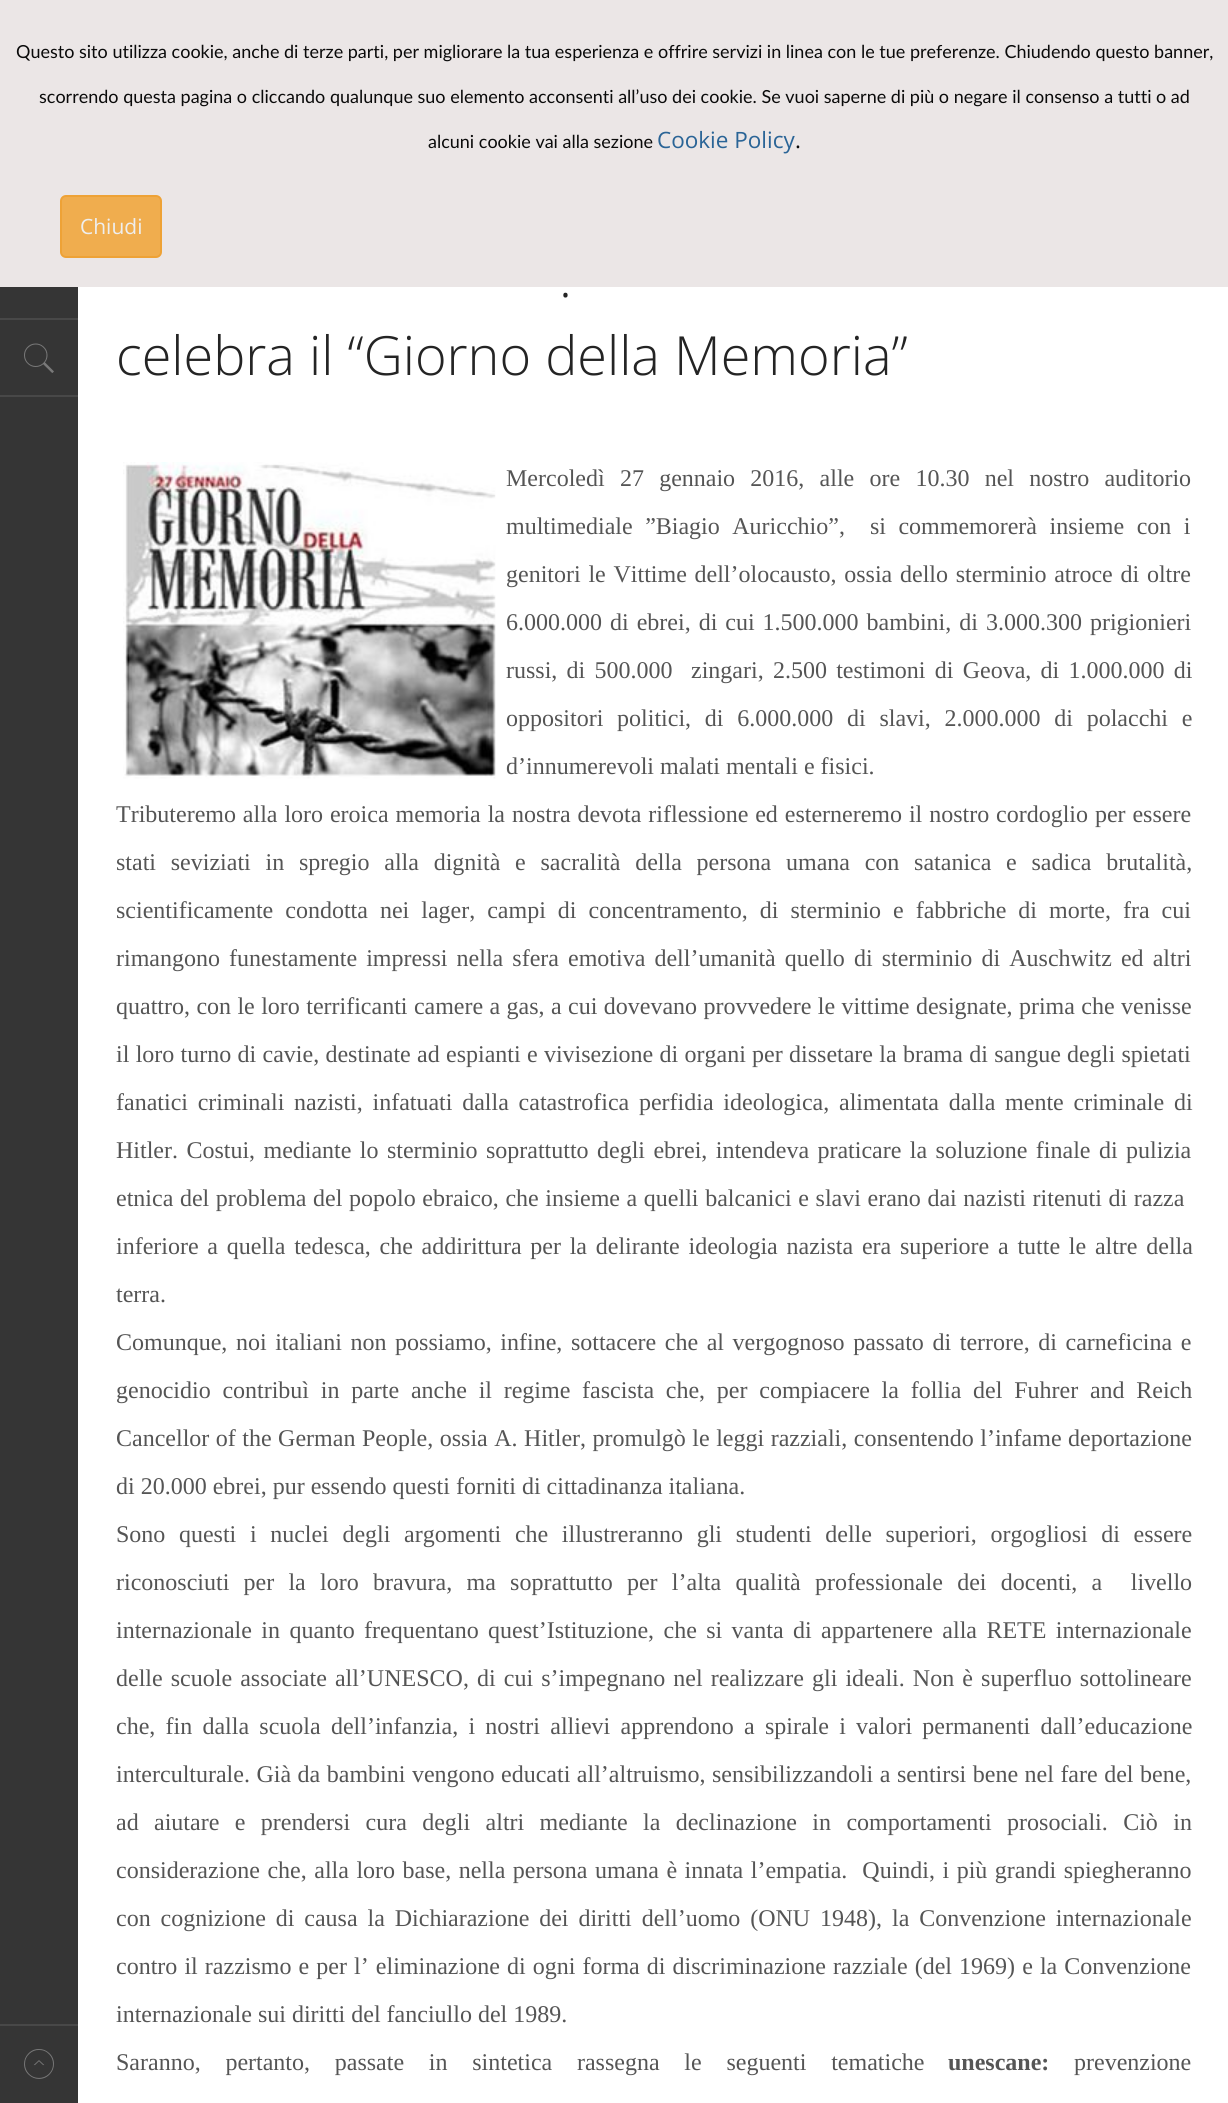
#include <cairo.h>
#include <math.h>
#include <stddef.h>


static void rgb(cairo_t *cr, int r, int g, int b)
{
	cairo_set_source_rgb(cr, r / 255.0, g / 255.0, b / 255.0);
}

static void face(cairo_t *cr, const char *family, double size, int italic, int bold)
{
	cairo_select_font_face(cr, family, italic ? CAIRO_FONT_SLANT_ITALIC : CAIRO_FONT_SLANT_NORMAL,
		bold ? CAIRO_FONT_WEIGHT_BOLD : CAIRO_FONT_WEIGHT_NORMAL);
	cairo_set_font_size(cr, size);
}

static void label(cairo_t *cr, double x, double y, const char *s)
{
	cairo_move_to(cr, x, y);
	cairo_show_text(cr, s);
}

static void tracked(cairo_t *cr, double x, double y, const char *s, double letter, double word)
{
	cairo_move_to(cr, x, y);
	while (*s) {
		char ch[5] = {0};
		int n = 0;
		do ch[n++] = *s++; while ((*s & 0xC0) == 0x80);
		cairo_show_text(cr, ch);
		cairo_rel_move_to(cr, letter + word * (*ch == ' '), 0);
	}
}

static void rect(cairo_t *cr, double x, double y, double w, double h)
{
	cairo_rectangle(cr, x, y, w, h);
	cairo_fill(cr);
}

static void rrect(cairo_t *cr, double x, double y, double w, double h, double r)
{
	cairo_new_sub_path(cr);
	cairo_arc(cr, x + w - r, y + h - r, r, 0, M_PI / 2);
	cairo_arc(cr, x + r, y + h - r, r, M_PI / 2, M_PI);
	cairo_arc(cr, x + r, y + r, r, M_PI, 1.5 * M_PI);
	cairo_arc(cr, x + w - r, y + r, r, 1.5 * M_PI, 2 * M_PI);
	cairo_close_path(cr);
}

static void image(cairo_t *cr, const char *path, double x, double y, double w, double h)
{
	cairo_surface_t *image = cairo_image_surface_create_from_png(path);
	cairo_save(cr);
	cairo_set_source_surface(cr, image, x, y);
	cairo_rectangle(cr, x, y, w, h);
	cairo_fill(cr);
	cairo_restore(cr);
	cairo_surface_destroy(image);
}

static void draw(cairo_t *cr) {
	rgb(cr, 53, 53, 53);
	cairo_paint(cr);
	rgb(cr, 255, 255, 255);
	rect(cr, 78, 287, 1150, 1816);
	rgb(cr, 235, 230, 230);
	rect(cr, 0, 0, 1228, 287);
	face(cr, "Lato", 18, 0, 0);
	rgb(cr, 10, 10, 10);
	label(cr, 16, 58, "Questo sito utilizza cookie, anche di terze parti, per migliorare la tua esperienza e offrire servizi in linea con le tue preferenze. Chiudendo questo banner,");
	label(cr, 39, 103, "scorrendo questa pagina o cliccando qualunque suo elemento acconsenti all’uso dei cookie. Se vuoi saperne di più o negare il consenso a tutti o ad");
	label(cr, 428, 148, "alcuni cookie vai alla sezione");
	face(cr, "Open Sans", 22.5, 0, 0);
	rgb(cr, 42, 100, 150);
	label(cr, 657, 148, "Cookie Policy");
	rgb(cr, 10, 10, 10);
	label(cr, 795, 148, ".");
	rgb(cr, 240, 173, 78);
	rrect(cr, 61, 196, 100, 61, 5);
	cairo_fill_preserve(cr);
	rgb(cr, 238, 162, 54);
	cairo_stroke(cr);
	face(cr, "Open Sans", 21, 0, 0);
	rgb(cr, 238, 238, 238);
	label(cr, 80, 234, "Chiudi");
	rgb(cr, 72, 72, 72);
	rect(cr, 0, 318, 78, 2);
	rect(cr, 0, 395, 78, 2);
	image(cr, "image0.png", 24, 343, 30, 30);
	face(cr, "Open Sans Light", 54, 0, 0);
	rgb(cr, 36, 36, 36);
	label(cr, 559, 297, ".");
	label(cr, 116, 375, "celebra il “Giorno della Memoria”");
	image(cr, "image1.png", 123, 462, 373, 317);
	face(cr, "Liberation Serif", 24, 0, 0);
	rgb(cr, 85, 85, 85);
	tracked(cr, 506, 486, "Mercoledì 27 gennaio 2016, alle ore 10.30 nel nostro auditorio", 0, 9.25);
	tracked(cr, 506, 534, "multimediale ”Biagio Auricchio”,  si commemorerà insieme con i", 0, 6.5);
	tracked(cr, 506, 582, "genitori le Vittime dell’olocausto, ossia dello sterminio atroce di oltre", 0, 1.75);
	tracked(cr, 506, 630, "6.000.000 di ebrei, di cui 1.500.000 bambini, di 3.000.300 prigionieri", 0, 2);
	tracked(cr, 506, 678, "russi, di 500.000  zingari, 2.500 testimoni di Geova, di 1.000.000 di", 0, 3.25);
	tracked(cr, 506, 726, "oppositori politici, di 6.000.000 di slavi, 2.000.000 di polacchi e", 0, 7.75);
	label(cr, 506, 774, "d’innumerevoli malati mentali e fisici.");
	tracked(cr, 116, 822, "Tributeremo alla loro eroica memoria la nostra devota riflessione ed esterneremo il nostro cordoglio per essere", 0, 0.9);
	tracked(cr, 116, 870, "stati seviziati in spregio alla dignità e sacralità della persona umana con satanica e sadica brutalità,", 0, 8.75);
	tracked(cr, 116, 918, "scientificamente condotta nei lager, campi di concentramento, di sterminio e fabbriche di morte, fra cui", 0, 6);
	tracked(cr, 116, 966, "rimangono funestamente impressi nella sfera emotiva dell’umanità quello di sterminio di Auschwitz ed altri", 0, 3.1);
	tracked(cr, 116, 1014, "quattro, con le loro terrificanti camere a gas, a cui dovevano provvedere le vittime designate, prima che venisse", 0, 0.4);
	tracked(cr, 116, 1062, "il loro turno di cavie, destinate ad espianti e vivisezione di organi per dissetare la brama di sangue degli spietati", 0, 0.3);
	tracked(cr, 116, 1110, "fanatici criminali nazisti, infatuati dalla catastrofica perfidia ideologica, alimentata dalla mente criminale di", 0, 3.75);
	tracked(cr, 116, 1158, "Hitler. Costui, mediante lo sterminio soprattutto degli ebrei, intendeva praticare la soluzione finale di pulizia", 0, 2.4);
	tracked(cr, 116, 1206, "etnica del problema del popolo ebraico, che insieme a quelli balcanici e slavi erano dai nazisti ritenuti di razza", 0, 0.6);
	tracked(cr, 116, 1254, "inferiore a quella tedesca, che addirittura per la delirante ideologia nazista era superiore a tutte le altre della", 0, 2.75);
	label(cr, 116, 1302, "terra.");
	tracked(cr, 116, 1350, "Comunque, noi italiani non possiamo, infine, sottacere che al vergognoso passato di terrore, di carneficina e", 0, 2.6);
	tracked(cr, 116, 1398, "genocidio contribuì in parte anche il regime fascista che, per compiacere la follia del Fuhrer and Reich", 0, 5.75);
	tracked(cr, 116, 1446, "Cancellor of the German People, ossia A. Hitler, promulgò le leggi razziali, consentendo l’infame deportazione", 0, 0.5);
	label(cr, 116, 1494, "di 20.000 ebrei, pur essendo questi forniti di cittadinanza italiana.");
	tracked(cr, 116, 1542, "Sono questi i nuclei degli argomenti che illustreranno gli studenti delle superiori, orgogliosi di essere", 0, 7.6);
	tracked(cr, 116, 1590, "riconosciuti per la loro bravura, ma soprattutto per l’alta qualità professionale dei docenti, a  livello", 0, 8.25);
	tracked(cr, 116, 1638, "internazionale in quanto frequentano quest’Istituzione, che si vanta di appartenere alla RETE internazionale", 0, 3.4);
	tracked(cr, 116, 1686, "delle scuole associate all’UNESCO, di cui s’impegnano nel realizzare gli ideali. Non è superfluo sottolineare", 0, 2.1);
	tracked(cr, 116, 1734, "che, fin dalla scuola dell’infanzia, i nostri allievi apprendono a spirale i valori permanenti dall’educazione", 0, 4.25);
	tracked(cr, 116, 1782, "interculturale. Già da bambini vengono educati all’altruismo, sensibilizzandoli a sentirsi bene nel fare del bene,", 0, 0.5);
	tracked(cr, 116, 1830, "ad aiutare e prendersi cura degli altri mediante la declinazione in comportamenti prosociali. Ciò in", 0, 9.4);
	tracked(cr, 116, 1878, "considerazione che, alla loro base, nella persona umana è innata l’empatia.  Quindi, i più grandi spiegheranno", 0, 1.5);
	tracked(cr, 116, 1926, "con cognizione di causa la Dichiarazione dei diritti dell’uomo (ONU 1948), la Convenzione internazionale", 0, 3.9);
	tracked(cr, 116, 1974, "contro il razzismo e per l’ eliminazione di ogni forma di discriminazione razziale (del 1969) e la Convenzione", 0, 1.1);
	label(cr, 116, 2022, "internazionale sui diritti del fanciullo del 1989.");
	tracked(cr, 116, 2070, "Saranno, pertanto, passate in sintetica rassegna le seguenti tematiche", 0, 18.75);
	face(cr, "Liberation Serif", 24, 0, 1);
	label(cr, 948, 2070, "unescane:");
	face(cr, "Liberation Serif", 24, 0, 0);
	label(cr, 1074, 2070, "prevenzione");
	rgb(cr, 72, 72, 72);
	rect(cr, 0, 2024, 78, 2);
	image(cr, "image2.png", 24, 2049, 30, 30);
}

int main(void) {
	cairo_surface_t *surface = cairo_image_surface_create(CAIRO_FORMAT_RGB24, 1228, 2103);
	cairo_t *cr = cairo_create(surface);
	cairo_font_options_t *options = cairo_font_options_create();
	cairo_font_options_set_hint_metrics(options, CAIRO_HINT_METRICS_OFF);
	cairo_font_options_set_hint_style(options, CAIRO_HINT_STYLE_NONE);
	cairo_set_font_options(cr, options);
	cairo_set_miter_limit(cr, 4);
	draw(cr);
	cairo_surface_write_to_png(surface, "render.png");
	cairo_font_options_destroy(options);
	cairo_destroy(cr);
	cairo_surface_destroy(surface);
	return 0;
}
